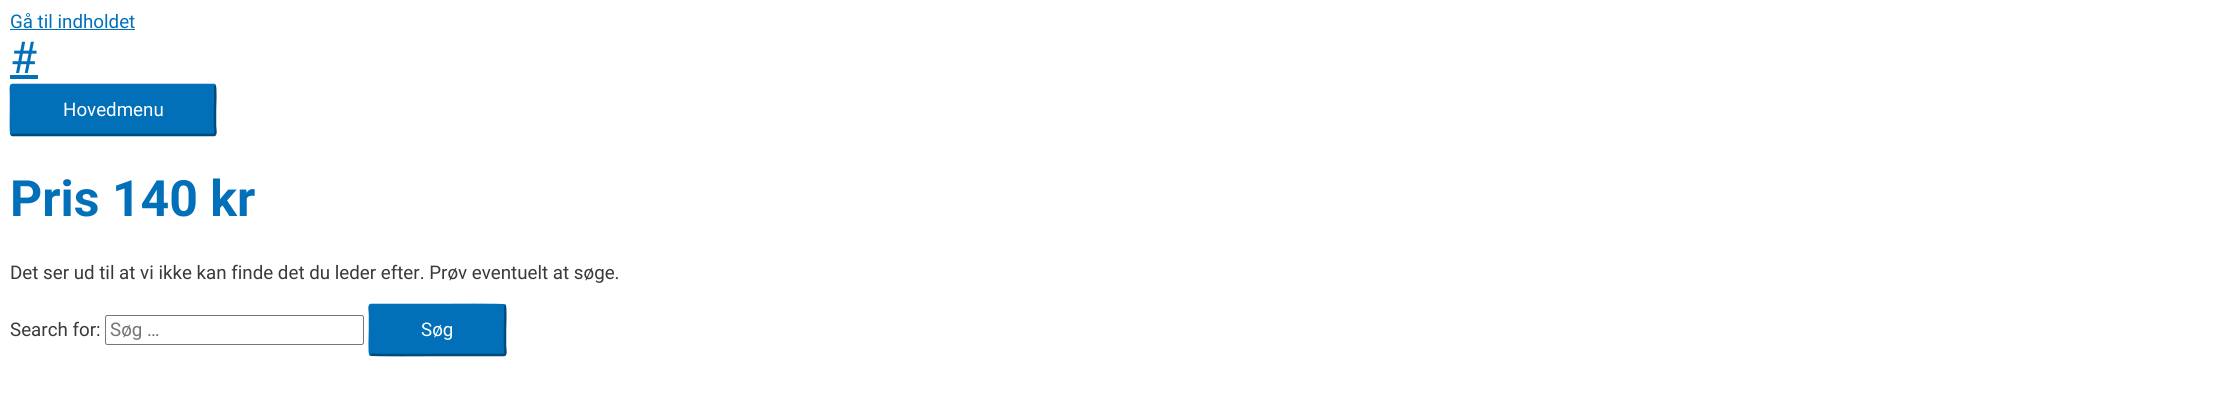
#include <cairo.h>
#include <math.h>
#include <stddef.h>


static void rgb(cairo_t *cr, int r, int g, int b)
{
	cairo_set_source_rgb(cr, r / 255.0, g / 255.0, b / 255.0);
}

static void face(cairo_t *cr, const char *family, double size, int italic, int bold)
{
	cairo_select_font_face(cr, family, italic ? CAIRO_FONT_SLANT_ITALIC : CAIRO_FONT_SLANT_NORMAL,
		bold ? CAIRO_FONT_WEIGHT_BOLD : CAIRO_FONT_WEIGHT_NORMAL);
	cairo_set_font_size(cr, size);
}

static void label(cairo_t *cr, double x, double y, const char *s)
{
	cairo_move_to(cr, x, y);
	cairo_show_text(cr, s);
}

static void rect(cairo_t *cr, double x, double y, double w, double h)
{
	cairo_rectangle(cr, x, y, w, h);
	cairo_fill(cr);
}

static void rrect(cairo_t *cr, double x, double y, double w, double h, double r)
{
	cairo_new_sub_path(cr);
	cairo_arc(cr, x + w - r, y + h - r, r, 0, M_PI / 2);
	cairo_arc(cr, x + r, y + h - r, r, M_PI / 2, M_PI);
	cairo_arc(cr, x + r, y + r, r, M_PI, 1.5 * M_PI);
	cairo_arc(cr, x + w - r, y + r, r, 1.5 * M_PI, 2 * M_PI);
	cairo_close_path(cr);
}

static void draw(cairo_t *cr) {
	rgb(cr, 255, 255, 255);
	cairo_paint(cr);
	face(cr, "Roboto", 18.75, 0, 0);
	rgb(cr, 1, 112, 185);
	label(cr, 10, 28, "Gå til indholdet");
	rect(cr, 10, 29, 125, 1);
	face(cr, "Roboto", 44, 0, 0);
	label(cr, 10, 73, "#");
	rect(cr, 10, 75, 28, 4);
	rrect(cr, 10, 84, 206, 52, 2.5);
	cairo_fill(cr);
	cairo_new_path(cr);
	cairo_move_to(cr, 214.5, 85.5);
	cairo_curve_to(cr, 216, 86.5, 215, 107, 215, 110);
	cairo_line_to(cr, 215, 126);
	cairo_curve_to(cr, 215, 128, 216.5, 135, 214, 135);
	cairo_line_to(cr, 12.5, 135);
	cairo_line_to(cr, 11.5, 134.5);
	rgb(cr, 1, 75, 123);
	cairo_set_line_width(cr, 2.5);
	cairo_stroke(cr);
	cairo_new_path(cr);
	cairo_move_to(cr, 11.5, 134.5);
	cairo_curve_to(cr, 10.5, 133.5, 11, 113, 11, 110);
	cairo_line_to(cr, 11, 94);
	cairo_curve_to(cr, 11, 92, 10, 85, 12.5, 85);
	cairo_line_to(cr, 214, 85);
	cairo_line_to(cr, 214.5, 85.5);
	rgb(cr, 1, 112, 185);
	cairo_stroke(cr);
	face(cr, "Roboto", 18.75, 0, 0);
	rgb(cr, 255, 255, 255);
	label(cr, 63, 116, "Hovedmenu");
	face(cr, "Roboto", 50, 0, 1);
	rgb(cr, 1, 112, 185);
	label(cr, 10, 216, "Pris 140 kr");
	face(cr, "Roboto", 18.75, 0, 0);
	rgb(cr, 58, 58, 58);
	label(cr, 10, 279, "Det ser ud til at vi ikke kan finde det du leder efter. Prøv eventuelt at søge.");
	label(cr, 10, 336, "Search for:");
	rrect(cr, 105.5, 315.5, 258, 29, 2);
	rgb(cr, 118, 118, 118);
	cairo_set_line_width(cr, 1);
	cairo_stroke(cr);
	rgb(cr, 117, 117, 117);
	label(cr, 110, 336, "Søg …");
	rgb(cr, 1, 112, 185);
	rrect(cr, 369, 304, 137, 52, 2.5);
	cairo_fill(cr);
	cairo_new_path(cr);
	cairo_move_to(cr, 504.5, 305.5);
	cairo_curve_to(cr, 506, 306.5, 505, 327, 505, 330);
	cairo_line_to(cr, 505, 346);
	cairo_curve_to(cr, 505, 348, 506.5, 355, 504, 355);
	cairo_line_to(cr, 437.5, 355);
	cairo_curve_to(cr, 431.5, 355, 371, 355.5, 370.5, 354.5);
	rgb(cr, 1, 75, 123);
	cairo_set_line_width(cr, 2.5);
	cairo_stroke(cr);
	cairo_new_path(cr);
	cairo_move_to(cr, 370.5, 354.5);
	cairo_curve_to(cr, 369, 353.5, 370, 333, 370, 330);
	cairo_line_to(cr, 370, 314);
	cairo_curve_to(cr, 370, 312, 368.5, 305, 371, 305);
	cairo_line_to(cr, 437.5, 305);
	cairo_curve_to(cr, 443.5, 305, 504, 304.5, 504.5, 305.5);
	rgb(cr, 1, 112, 185);
	cairo_stroke(cr);
	rgb(cr, 255, 255, 255);
	label(cr, 421, 336, "Søg");
}

int main(void) {
	cairo_surface_t *surface = cairo_image_surface_create(CAIRO_FORMAT_RGB24, 2221, 410);
	cairo_t *cr = cairo_create(surface);
	cairo_font_options_t *options = cairo_font_options_create();
	cairo_font_options_set_hint_metrics(options, CAIRO_HINT_METRICS_OFF);
	cairo_font_options_set_hint_style(options, CAIRO_HINT_STYLE_NONE);
	cairo_set_font_options(cr, options);
	cairo_set_miter_limit(cr, 4);
	draw(cr);
	cairo_surface_write_to_png(surface, "render.png");
	cairo_font_options_destroy(options);
	cairo_destroy(cr);
	cairo_surface_destroy(surface);
	return 0;
}
